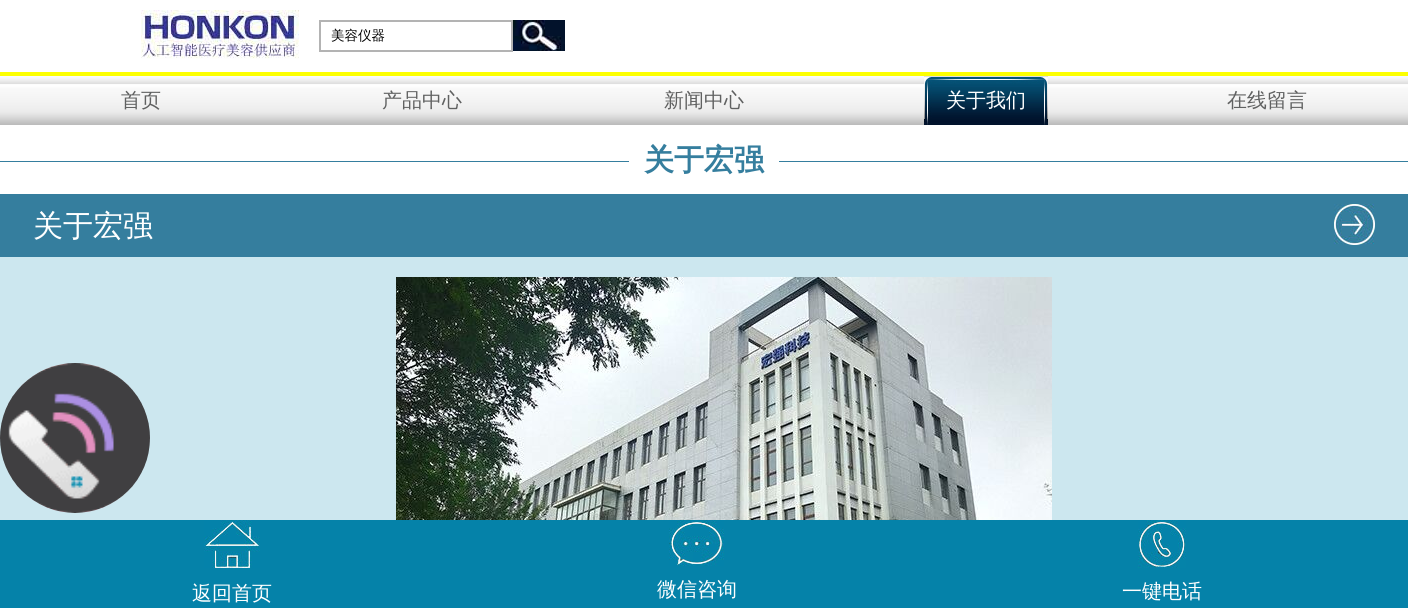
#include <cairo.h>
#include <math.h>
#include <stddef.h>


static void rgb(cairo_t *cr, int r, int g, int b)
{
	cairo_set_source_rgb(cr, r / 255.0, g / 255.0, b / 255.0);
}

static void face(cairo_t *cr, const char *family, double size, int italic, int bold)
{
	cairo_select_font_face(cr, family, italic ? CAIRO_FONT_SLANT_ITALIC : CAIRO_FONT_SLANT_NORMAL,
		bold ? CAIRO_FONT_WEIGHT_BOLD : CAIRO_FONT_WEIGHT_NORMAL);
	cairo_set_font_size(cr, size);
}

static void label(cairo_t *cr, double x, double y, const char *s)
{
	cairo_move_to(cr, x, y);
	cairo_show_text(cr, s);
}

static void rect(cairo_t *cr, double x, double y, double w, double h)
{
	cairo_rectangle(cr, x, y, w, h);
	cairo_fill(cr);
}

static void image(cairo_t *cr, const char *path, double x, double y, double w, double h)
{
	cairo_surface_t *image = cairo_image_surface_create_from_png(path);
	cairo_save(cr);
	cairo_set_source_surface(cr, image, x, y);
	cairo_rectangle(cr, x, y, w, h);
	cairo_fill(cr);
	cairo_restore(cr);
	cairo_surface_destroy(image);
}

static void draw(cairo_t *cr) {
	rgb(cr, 255, 255, 255);
	cairo_paint(cr);
	image(cr, "image0.png", 141, 10, 158, 49);
	cairo_rectangle(cr, 320, 21, 192, 30);
	rgb(cr, 179, 179, 179);
	cairo_stroke(cr);
	face(cr, "WenQuanYi Zen Hei Medium", 13.5, 0, 0);
	rgb(cr, 0, 0, 0);
	label(cr, 331, 40, "美容仪器");
	image(cr, "image1.png", 513, 20, 52, 31);
	rgb(cr, 252, 255, 0);
	rect(cr, 0, 72, 1408, 4);
	image(cr, "image2.png", 0, 76, 1408, 49);
	face(cr, "WenQuanYi Zen Hei Medium", 20, 0, 0);
	rgb(cr, 96, 97, 97);
	label(cr, 121, 107, "首页");
	label(cr, 382, 107, "产品中心");
	label(cr, 664, 107, "新闻中心");
	image(cr, "image3.png", 924, 76, 124, 49);
	rgb(cr, 255, 255, 255);
	label(cr, 946, 107, "关于我们");
	rgb(cr, 96, 97, 97);
	label(cr, 1227, 107, "在线留言");
	rgb(cr, 53, 126, 158);
	rect(cr, 0, 161, 1408, 1);
	rgb(cr, 255, 255, 255);
	rect(cr, 629, 161, 150, 1);
	face(cr, "WenQuanYi Zen Hei", 30, 0, 1);
	rgb(cr, 53, 126, 158);
	label(cr, 644, 170, "关于宏强");
	rect(cr, 0, 194, 1408, 63);
	face(cr, "WenQuanYi Zen Hei Medium", 30, 0, 0);
	rgb(cr, 255, 255, 255);
	label(cr, 33, 236, "关于宏强");
	image(cr, "image4.png", 1334, 204, 41, 41);
	rgb(cr, 204, 231, 239);
	rect(cr, 0, 257, 1408, 263);
	image(cr, "image5.png", 396, 277, 656, 243);
	image(cr, "image6.png", 0, 363, 150, 150);
	rgb(cr, 5, 130, 169);
	rect(cr, 0, 520, 1408, 88);
	image(cr, "image7.png", 204, 520, 56, 48);
	face(cr, "WenQuanYi Zen Hei Medium", 20, 0, 0);
	rgb(cr, 255, 255, 255);
	label(cr, 192, 600, "返回首页");
	image(cr, "image8.png", 669, 520, 55, 46);
	label(cr, 657, 596, "微信咨询");
	image(cr, "image9.png", 1138, 520, 48, 48);
	label(cr, 1122, 598, "一键电话");
}

int main(void) {
	cairo_surface_t *surface = cairo_image_surface_create(CAIRO_FORMAT_RGB24, 1408, 608);
	cairo_t *cr = cairo_create(surface);
	cairo_font_options_t *options = cairo_font_options_create();
	cairo_font_options_set_hint_metrics(options, CAIRO_HINT_METRICS_OFF);
	cairo_font_options_set_hint_style(options, CAIRO_HINT_STYLE_NONE);
	cairo_set_font_options(cr, options);
	cairo_set_miter_limit(cr, 4);
	draw(cr);
	cairo_surface_write_to_png(surface, "render.png");
	cairo_font_options_destroy(options);
	cairo_destroy(cr);
	cairo_surface_destroy(surface);
	return 0;
}
